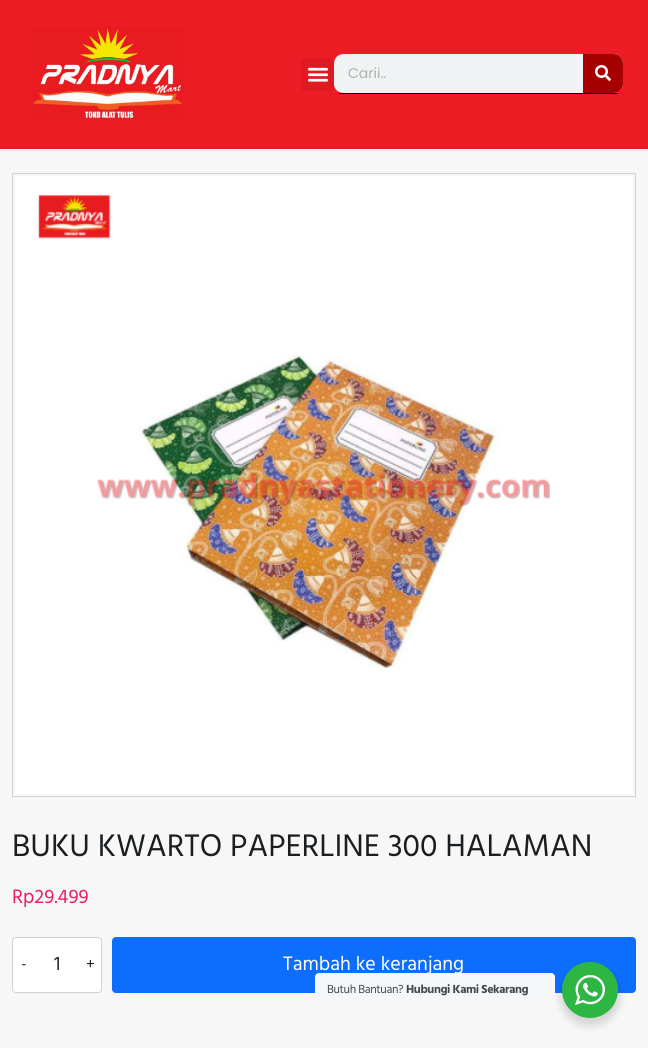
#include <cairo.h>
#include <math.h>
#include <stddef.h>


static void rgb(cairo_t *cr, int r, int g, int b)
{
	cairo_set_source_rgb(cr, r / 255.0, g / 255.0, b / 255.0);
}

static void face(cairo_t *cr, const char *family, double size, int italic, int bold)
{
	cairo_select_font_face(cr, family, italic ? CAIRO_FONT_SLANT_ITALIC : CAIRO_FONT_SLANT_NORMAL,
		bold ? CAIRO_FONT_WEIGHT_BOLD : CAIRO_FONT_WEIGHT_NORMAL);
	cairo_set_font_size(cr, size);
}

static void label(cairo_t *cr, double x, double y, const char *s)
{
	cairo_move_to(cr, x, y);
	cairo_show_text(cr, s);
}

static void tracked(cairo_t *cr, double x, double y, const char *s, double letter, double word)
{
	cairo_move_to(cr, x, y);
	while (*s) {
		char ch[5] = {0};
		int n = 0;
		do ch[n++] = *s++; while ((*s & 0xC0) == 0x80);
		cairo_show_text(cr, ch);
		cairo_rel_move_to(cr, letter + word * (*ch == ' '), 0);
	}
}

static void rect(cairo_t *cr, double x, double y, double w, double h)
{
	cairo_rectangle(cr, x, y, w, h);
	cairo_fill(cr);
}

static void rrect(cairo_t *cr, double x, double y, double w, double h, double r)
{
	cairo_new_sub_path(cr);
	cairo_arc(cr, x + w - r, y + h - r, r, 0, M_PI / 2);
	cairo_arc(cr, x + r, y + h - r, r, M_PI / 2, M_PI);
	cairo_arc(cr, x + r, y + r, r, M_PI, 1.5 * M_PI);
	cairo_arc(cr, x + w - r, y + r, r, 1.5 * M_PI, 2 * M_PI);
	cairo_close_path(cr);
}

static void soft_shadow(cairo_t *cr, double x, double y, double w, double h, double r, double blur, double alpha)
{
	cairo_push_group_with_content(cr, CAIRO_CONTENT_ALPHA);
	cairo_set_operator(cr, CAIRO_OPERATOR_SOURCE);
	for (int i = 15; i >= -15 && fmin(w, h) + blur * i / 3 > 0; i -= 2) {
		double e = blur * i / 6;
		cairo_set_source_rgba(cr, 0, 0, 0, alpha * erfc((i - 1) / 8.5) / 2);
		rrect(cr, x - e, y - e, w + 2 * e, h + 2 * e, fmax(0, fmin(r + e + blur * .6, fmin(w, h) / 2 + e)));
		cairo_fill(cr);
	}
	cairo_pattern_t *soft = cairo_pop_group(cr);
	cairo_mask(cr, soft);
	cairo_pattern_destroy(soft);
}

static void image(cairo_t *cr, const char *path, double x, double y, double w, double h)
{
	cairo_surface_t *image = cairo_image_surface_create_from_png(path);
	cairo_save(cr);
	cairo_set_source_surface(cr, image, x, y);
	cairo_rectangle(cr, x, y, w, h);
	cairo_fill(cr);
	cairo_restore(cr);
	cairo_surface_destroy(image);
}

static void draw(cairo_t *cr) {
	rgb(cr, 247, 247, 247);
	cairo_paint(cr);
	rgb(cr, 235, 28, 35);
	rect(cr, 0, 0, 648, 149);
	image(cr, "image0.png", 33, 27, 150, 92);
	rgb(cr, 223, 27, 33);
	rrect(cr, 301, 58, 33, 33, 3);
	cairo_fill(cr);
	image(cr, "image1.png", 307, 67, 22, 15);
	rgb(cr, 241, 242, 243);
	cairo_new_path(cr);
	cairo_move_to(cr, 344, 54);
	cairo_line_to(cr, 613, 54);
	cairo_curve_to(cr, 619, 54, 623, 58, 623, 64);
	cairo_line_to(cr, 623, 84);
	cairo_curve_to(cr, 623, 89, 619, 93, 613, 93);
	cairo_line_to(cr, 344, 93);
	cairo_curve_to(cr, 338, 93, 334, 89, 334, 84);
	cairo_line_to(cr, 334, 64);
	cairo_curve_to(cr, 334, 58, 338, 54, 344, 54);
	cairo_close_path(cr);
	cairo_fill(cr);
	rgb(cr, 0, 0, 0);
	rect(cr, 339, 93, 279, 1);
	face(cr, "Poppins", 14, 0, 0);
	rgb(cr, 174, 175, 175);
	label(cr, 348, 78, "Carii..");
	rgb(cr, 167, 0, 0);
	cairo_new_path(cr);
	cairo_move_to(cr, 583, 54);
	cairo_line_to(cr, 583, 93);
	cairo_line_to(cr, 613, 93);
	cairo_curve_to(cr, 619, 93, 623, 89, 623, 84);
	cairo_line_to(cr, 623, 64);
	cairo_curve_to(cr, 623, 58, 619, 54, 613, 54);
	cairo_close_path(cr);
	cairo_fill(cr);
	image(cr, "image2.png", 595, 65, 16, 16);
	cairo_rectangle(cr, 12.5, 173.5, 623, 623);
	rgb(cr, 210, 210, 210);
	cairo_set_line_width(cr, 1);
	cairo_stroke(cr);
	image(cr, "image3.png", 15, 176, 618, 618);
	face(cr, "Hind", 32, 0, 0);
	rgb(cr, 26, 30, 33);
	label(cr, 12, 856, "BUKU KWARTO PAPERLINE 300 HALAMAN");
	face(cr, "Hind", 20, 0, 0);
	rgb(cr, 233, 30, 99);
	label(cr, 12, 903, "Rp29.499");
	rgb(cr, 255, 255, 255);
	rrect(cr, 12.5, 937.5, 89, 55, 3.5);
	cairo_fill_preserve(cr);
	rgb(cr, 210, 210, 210);
	cairo_stroke(cr);
	face(cr, "Hind", 16, 0, 0);
	rgb(cr, 33, 37, 41);
	label(cr, 21, 969, "-");
	face(cr, "Hind", 20, 0, 0);
	label(cr, 54, 970, "1");
	face(cr, "Hind", 16, 0, 0);
	label(cr, 86, 969, "+");
	rgb(cr, 13, 110, 253);
	rrect(cr, 112.5, 937.5, 523, 55, 3.5);
	cairo_fill_preserve(cr);
	cairo_stroke(cr);
	face(cr, "Hind", 20, 0, 0);
	rgb(cr, 255, 255, 255);
	label(cr, 283, 970, "Tambah ke keranjang");
	rgb(cr, 0, 0, 0);
	soft_shadow(cr, 560, 966, 60, 60, 30, 4, 0.14);
	rgb(cr, 245, 247, 249);
	rrect(cr, 315, 973, 240, 34, 4);
	cairo_fill(cr);
	face(cr, "Hind", 12, 0, 0);
	rgb(cr, 67, 71, 78);
	tracked(cr, 327, 993, "Butuh Bantuan?", -0.4, 0);
	face(cr, "Hind", 12, 0, 1);
	tracked(cr, 406, 993, "Hubungi Kami Sekarang", -0.4, 0);
	rgb(cr, 45, 183, 66);
	cairo_new_path(cr);
	cairo_arc(cr, 590, 990, 28, 0, 2 * M_PI);
	cairo_fill(cr);
	image(cr, "image4.png", 575, 975, 30, 30);
}

int main(void) {
	cairo_surface_t *surface = cairo_image_surface_create(CAIRO_FORMAT_RGB24, 648, 1048);
	cairo_t *cr = cairo_create(surface);
	cairo_font_options_t *options = cairo_font_options_create();
	cairo_font_options_set_hint_metrics(options, CAIRO_HINT_METRICS_OFF);
	cairo_font_options_set_hint_style(options, CAIRO_HINT_STYLE_NONE);
	cairo_set_font_options(cr, options);
	cairo_set_miter_limit(cr, 4);
	draw(cr);
	cairo_surface_write_to_png(surface, "render.png");
	cairo_font_options_destroy(options);
	cairo_destroy(cr);
	cairo_surface_destroy(surface);
	return 0;
}
